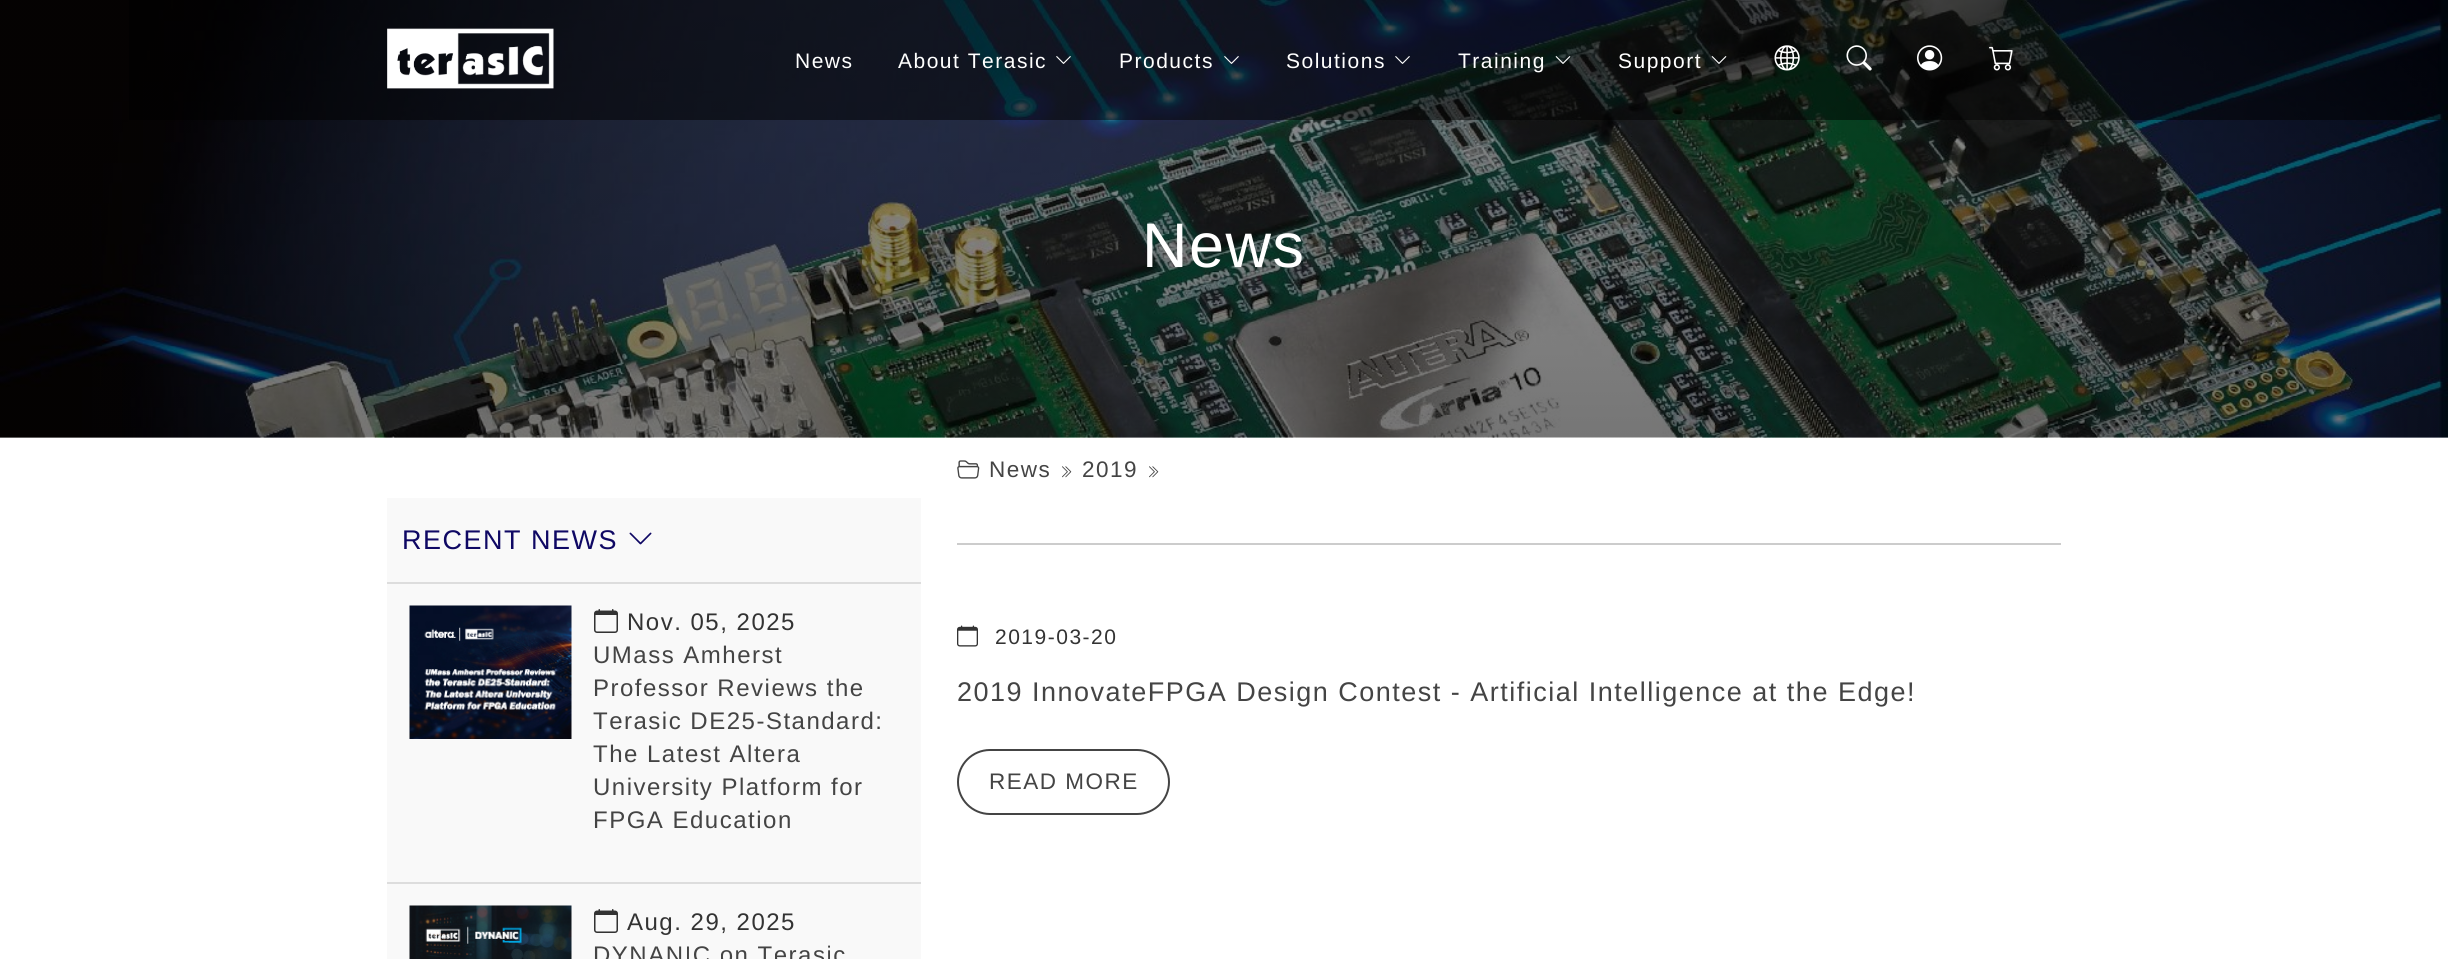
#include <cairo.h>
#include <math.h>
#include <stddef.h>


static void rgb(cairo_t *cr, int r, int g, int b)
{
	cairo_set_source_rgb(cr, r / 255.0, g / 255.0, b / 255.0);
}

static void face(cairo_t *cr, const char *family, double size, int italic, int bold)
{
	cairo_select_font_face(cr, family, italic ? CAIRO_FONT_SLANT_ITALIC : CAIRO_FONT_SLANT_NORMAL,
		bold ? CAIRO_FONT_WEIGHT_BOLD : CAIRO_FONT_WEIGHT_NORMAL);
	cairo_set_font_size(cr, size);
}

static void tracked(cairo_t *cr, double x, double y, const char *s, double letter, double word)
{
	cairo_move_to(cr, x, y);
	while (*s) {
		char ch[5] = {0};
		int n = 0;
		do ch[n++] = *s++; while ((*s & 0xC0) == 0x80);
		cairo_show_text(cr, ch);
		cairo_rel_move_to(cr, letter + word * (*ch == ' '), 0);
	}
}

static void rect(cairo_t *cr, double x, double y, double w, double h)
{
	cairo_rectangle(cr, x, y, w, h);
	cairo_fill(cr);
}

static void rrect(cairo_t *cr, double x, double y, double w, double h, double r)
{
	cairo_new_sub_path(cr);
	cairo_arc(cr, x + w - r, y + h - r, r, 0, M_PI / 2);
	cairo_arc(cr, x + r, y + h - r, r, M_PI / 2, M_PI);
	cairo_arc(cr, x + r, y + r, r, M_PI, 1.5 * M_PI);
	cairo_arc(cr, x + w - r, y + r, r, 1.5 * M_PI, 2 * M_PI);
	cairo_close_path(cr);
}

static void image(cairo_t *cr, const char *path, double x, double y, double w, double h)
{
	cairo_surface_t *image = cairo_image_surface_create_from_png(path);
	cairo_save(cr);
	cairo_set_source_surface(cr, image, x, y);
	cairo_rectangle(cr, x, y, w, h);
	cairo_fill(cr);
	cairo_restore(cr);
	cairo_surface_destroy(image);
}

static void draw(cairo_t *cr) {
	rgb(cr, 255, 255, 255);
	cairo_paint(cr);
	image(cr, "image10.png", 0, 0, 2448, 438);
	cairo_set_source_rgba(cr, 0, 0, 0, 0.5);
	rect(cr, 129, 0, 2319, 120);
	image(cr, "image0.png", 387, 28, 167, 61);
	face(cr, "Liberation Sans", 21, 0, 0);
	rgb(cr, 255, 255, 255);
	tracked(cr, 795, 68, "News", 1.5, 0);
	tracked(cr, 898, 68, "About Terasic", 1.5, 0);
	image(cr, "image1.png", 1056, 56, 15, 8);
	tracked(cr, 1119, 68, "Products", 1.5, 0);
	image(cr, "image2.png", 1224, 56, 15, 8);
	tracked(cr, 1286, 68, "Solutions", 1.5, 0);
	image(cr, "image3.png", 1395, 56, 15, 8);
	tracked(cr, 1458, 68, "Training", 1.5, 0);
	image(cr, "image4.png", 1555, 56, 16, 8);
	tracked(cr, 1618, 68, "Support", 1.5, 0);
	image(cr, "image5.png", 1711, 56, 16, 8);
	image(cr, "image6.png", 1774, 45, 26, 26);
	image(cr, "image7.png", 1846, 45, 26, 26);
	image(cr, "image8.png", 1917, 45, 26, 26);
	image(cr, "image9.png", 1989, 46, 24, 25);
	face(cr, "Liberation Sans", 63, 0, 0);
	tracked(cr, 1142, 267, "News", 1.5, 0);
	image(cr, "image11.png", 957, 460, 23, 19);
	face(cr, "Liberation Sans", 22.5, 0, 0);
	rgb(cr, 68, 68, 68);
	tracked(cr, 989, 477, "News", 1.5, 0);
	image(cr, "image12.png", 1062, 466, 10, 12);
	tracked(cr, 1082, 477, "2019", 1.5, 0);
	image(cr, "image12.png", 1149, 466, 10, 12);
	rgb(cr, 249, 249, 249);
	rect(cr, 387, 498, 534, 461);
	rgb(cr, 221, 221, 221);
	rect(cr, 387, 582, 534, 2);
	face(cr, "Liberation Sans", 27, 0, 0);
	rgb(cr, 15, 8, 100);
	tracked(cr, 402, 549, "RECENT NEWS", 1.5, 0);
	image(cr, "image13.png", 629, 532, 23, 13);
	rgb(cr, 221, 221, 221);
	rect(cr, 387, 882, 534, 2);
	image(cr, "image14.png", 409, 605, 163, 134);
	image(cr, "image15.png", 594, 609, 24, 24);
	face(cr, "Liberation Sans", 24, 0, 0);
	rgb(cr, 51, 51, 51);
	tracked(cr, 627, 630, "Nov. 05, 2025", 1.5, 0);
	rgb(cr, 68, 68, 68);
	tracked(cr, 593, 663, "UMass Amherst", 1.5, 0);
	tracked(cr, 593, 696, "Professor Reviews the", 1.5, 0);
	tracked(cr, 593, 729, "Terasic DE25-Standard:", 1.5, 0);
	tracked(cr, 593, 762, "The Latest Altera", 1.5, 0);
	tracked(cr, 593, 795, "University Platform for", 1.5, 0);
	tracked(cr, 593, 828, "FPGA Education", 1.5, 0);
	image(cr, "image16.png", 409, 905, 163, 54);
	image(cr, "image15.png", 594, 909, 24, 24);
	rgb(cr, 51, 51, 51);
	tracked(cr, 627, 930, "Aug. 29, 2025", 1.5, 0);
	rgb(cr, 68, 68, 68);
	tracked(cr, 593, 963, "DYNANIC on Terasic", 1.5, 0);
	rgb(cr, 204, 204, 204);
	rect(cr, 957, 543, 1104, 2);
	image(cr, "image17.png", 957, 625, 21, 22);
	face(cr, "Liberation Sans", 21, 0, 0);
	rgb(cr, 51, 51, 51);
	tracked(cr, 995, 644, "2019-03-20", 1.5, 0);
	face(cr, "Liberation Sans", 27, 0, 0);
	rgb(cr, 68, 68, 68);
	tracked(cr, 957, 701, "2019 InnovateFPGA Design Contest - Artificial Intelligence at the Edge!", 1.5, 0);
	rrect(cr, 958, 750, 211, 64, 32);
	cairo_stroke(cr);
	face(cr, "Liberation Sans", 22.5, 0, 0);
	tracked(cr, 989, 789, "READ MORE", 1.5, 0);
}

int main(void) {
	cairo_surface_t *surface = cairo_image_surface_create(CAIRO_FORMAT_RGB24, 2448, 959);
	cairo_t *cr = cairo_create(surface);
	cairo_font_options_t *options = cairo_font_options_create();
	cairo_font_options_set_hint_metrics(options, CAIRO_HINT_METRICS_OFF);
	cairo_font_options_set_hint_style(options, CAIRO_HINT_STYLE_NONE);
	cairo_set_font_options(cr, options);
	cairo_set_miter_limit(cr, 4);
	draw(cr);
	cairo_surface_write_to_png(surface, "render.png");
	cairo_font_options_destroy(options);
	cairo_destroy(cr);
	cairo_surface_destroy(surface);
	return 0;
}
